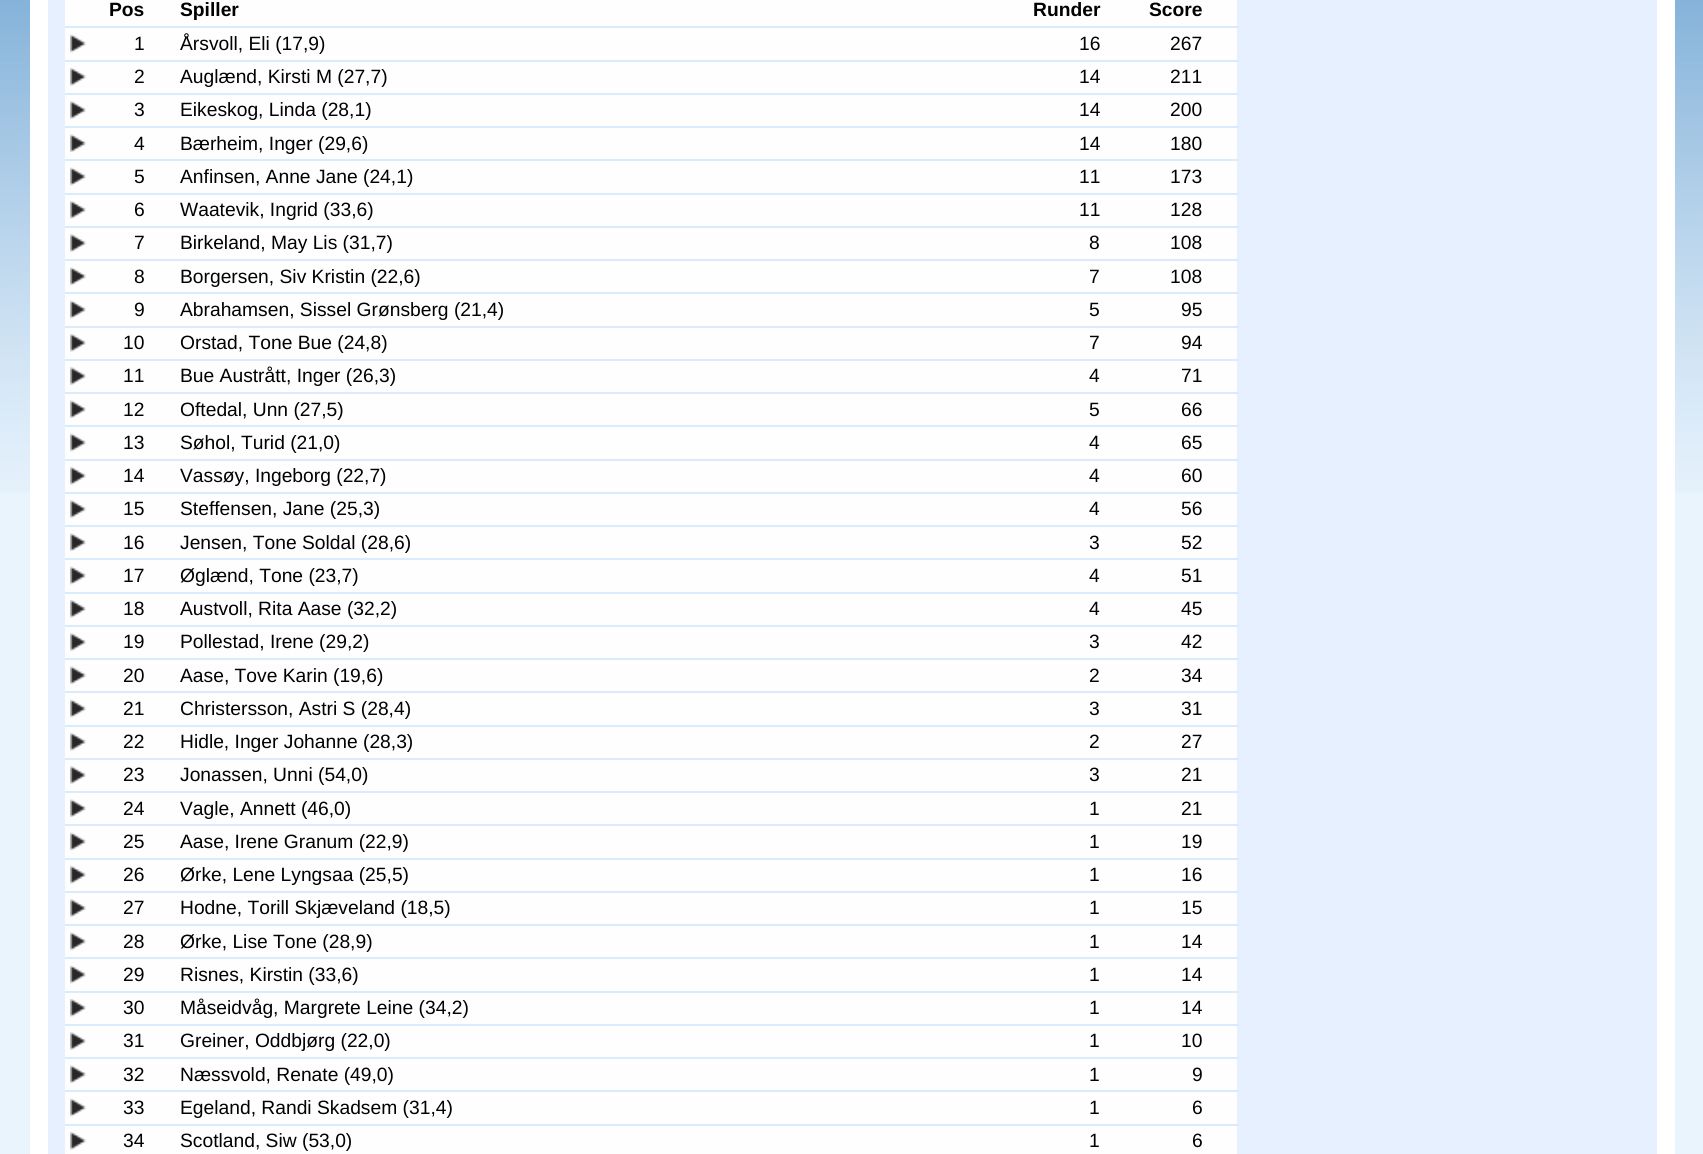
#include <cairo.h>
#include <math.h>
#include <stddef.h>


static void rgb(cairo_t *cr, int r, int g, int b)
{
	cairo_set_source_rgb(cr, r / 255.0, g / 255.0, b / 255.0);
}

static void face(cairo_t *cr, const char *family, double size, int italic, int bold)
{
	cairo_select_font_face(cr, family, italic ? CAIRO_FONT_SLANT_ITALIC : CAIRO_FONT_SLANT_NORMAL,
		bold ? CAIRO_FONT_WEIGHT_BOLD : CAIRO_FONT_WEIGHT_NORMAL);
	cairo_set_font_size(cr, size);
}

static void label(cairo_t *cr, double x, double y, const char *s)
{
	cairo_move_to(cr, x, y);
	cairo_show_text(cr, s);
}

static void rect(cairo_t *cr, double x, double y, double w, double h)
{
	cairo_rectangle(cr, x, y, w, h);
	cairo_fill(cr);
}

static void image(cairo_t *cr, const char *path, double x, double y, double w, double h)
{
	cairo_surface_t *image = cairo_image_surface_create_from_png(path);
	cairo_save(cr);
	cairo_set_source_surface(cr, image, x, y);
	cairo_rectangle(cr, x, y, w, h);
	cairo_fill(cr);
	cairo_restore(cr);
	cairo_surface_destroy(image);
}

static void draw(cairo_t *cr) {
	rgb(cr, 233, 244, 253);
	cairo_paint(cr);
	image(cr, "image0.png", 0, 0, 1703, 493);
	rgb(cr, 231, 240, 255);
	cairo_rectangle(cr, 39, -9, 1627, 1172);
	cairo_fill_preserve(cr);
	rgb(cr, 255, 255, 255);
	cairo_set_line_width(cr, 18);
	cairo_stroke(cr);
	rgb(cr, 254, 254, 254);
	rect(cr, 65, 0, 1172, 26);
	rgb(cr, 218, 235, 254);
	rect(cr, 65, 26, 1174, 2);
	face(cr, "Liberation Sans", 19.25, 0, 1);
	rgb(cr, 0, 0, 0);
	label(cr, 109, 16, "Pos");
	label(cr, 180, 16, "Spiller");
	label(cr, 1033, 16, "Runder");
	label(cr, 1149, 16, "Score");
	rgb(cr, 254, 254, 254);
	rect(cr, 65, 28, 1172, 32);
	rgb(cr, 218, 235, 254);
	rect(cr, 65, 60, 1174, 2);
	image(cr, "image1.png", 70, 34, 16, 19);
	face(cr, "Liberation Sans", 19.25, 0, 0);
	rgb(cr, 0, 0, 0);
	label(cr, 134, 50, "1");
	label(cr, 180, 50, "Årsvoll, Eli (17,9)");
	label(cr, 1079, 50, "16");
	label(cr, 1170, 50, "267");
	rgb(cr, 254, 254, 254);
	rect(cr, 65, 62, 1172, 31);
	rgb(cr, 218, 235, 254);
	rect(cr, 65, 93, 1174, 2);
	image(cr, "image2.png", 70, 68, 16, 18);
	rgb(cr, 0, 0, 0);
	label(cr, 134, 83, "2");
	label(cr, 180, 83, "Auglænd, Kirsti M (27,7)");
	label(cr, 1079, 83, "14");
	label(cr, 1170, 83, "211");
	rgb(cr, 254, 254, 254);
	rect(cr, 65, 95, 1172, 31);
	rgb(cr, 218, 235, 254);
	rect(cr, 65, 126, 1174, 2);
	image(cr, "image3.png", 70, 101, 16, 18);
	rgb(cr, 0, 0, 0);
	label(cr, 134, 116, "3");
	label(cr, 180, 116, "Eikeskog, Linda (28,1)");
	label(cr, 1079, 116, "14");
	label(cr, 1170, 116, "200");
	rgb(cr, 254, 254, 254);
	rect(cr, 65, 128, 1172, 31);
	rgb(cr, 218, 235, 254);
	rect(cr, 65, 159, 1174, 2);
	image(cr, "image4.png", 70, 134, 16, 18);
	rgb(cr, 0, 0, 0);
	label(cr, 134, 150, "4");
	label(cr, 180, 150, "Bærheim, Inger (29,6)");
	label(cr, 1079, 150, "14");
	label(cr, 1170, 150, "180");
	rgb(cr, 254, 254, 254);
	rect(cr, 65, 161, 1172, 32);
	rgb(cr, 218, 235, 254);
	rect(cr, 65, 193, 1174, 2);
	image(cr, "image1.png", 70, 167, 16, 19);
	rgb(cr, 0, 0, 0);
	label(cr, 134, 183, "5");
	label(cr, 180, 183, "Anfinsen, Anne Jane (24,1)");
	label(cr, 1079, 183, "11");
	label(cr, 1170, 183, "173");
	rgb(cr, 254, 254, 254);
	rect(cr, 65, 195, 1172, 31);
	rgb(cr, 218, 235, 254);
	rect(cr, 65, 226, 1174, 2);
	image(cr, "image2.png", 70, 201, 16, 18);
	rgb(cr, 0, 0, 0);
	label(cr, 134, 216, "6");
	label(cr, 180, 216, "Waatevik, Ingrid (33,6)");
	label(cr, 1079, 216, "11");
	label(cr, 1170, 216, "128");
	rgb(cr, 254, 254, 254);
	rect(cr, 65, 228, 1172, 31);
	rgb(cr, 218, 235, 254);
	rect(cr, 65, 259, 1174, 2);
	image(cr, "image3.png", 70, 234, 16, 18);
	rgb(cr, 0, 0, 0);
	label(cr, 134, 249, "7");
	label(cr, 180, 249, "Birkeland, May Lis (31,7)");
	label(cr, 1089, 249, "8");
	label(cr, 1170, 249, "108");
	rgb(cr, 254, 254, 254);
	rect(cr, 65, 261, 1172, 31);
	rgb(cr, 218, 235, 254);
	rect(cr, 65, 292, 1174, 2);
	image(cr, "image4.png", 70, 267, 16, 18);
	rgb(cr, 0, 0, 0);
	label(cr, 134, 283, "8");
	label(cr, 180, 283, "Borgersen, Siv Kristin (22,6)");
	label(cr, 1089, 283, "7");
	label(cr, 1170, 283, "108");
	rgb(cr, 254, 254, 254);
	rect(cr, 65, 294, 1172, 32);
	rgb(cr, 218, 235, 254);
	rect(cr, 65, 326, 1174, 2);
	image(cr, "image1.png", 70, 300, 16, 19);
	rgb(cr, 0, 0, 0);
	label(cr, 134, 316, "9");
	label(cr, 180, 316, "Abrahamsen, Sissel Grønsberg (21,4)");
	label(cr, 1089, 316, "5");
	label(cr, 1181, 316, "95");
	rgb(cr, 254, 254, 254);
	rect(cr, 65, 328, 1172, 31);
	rgb(cr, 218, 235, 254);
	rect(cr, 65, 359, 1174, 2);
	image(cr, "image2.png", 70, 334, 16, 18);
	rgb(cr, 0, 0, 0);
	label(cr, 123, 349, "10");
	label(cr, 180, 349, "Orstad, Tone Bue (24,8)");
	label(cr, 1089, 349, "7");
	label(cr, 1181, 349, "94");
	rgb(cr, 254, 254, 254);
	rect(cr, 65, 361, 1172, 31);
	rgb(cr, 218, 235, 254);
	rect(cr, 65, 392, 1174, 2);
	image(cr, "image3.png", 70, 367, 16, 18);
	rgb(cr, 0, 0, 0);
	label(cr, 123, 382, "11");
	label(cr, 180, 382, "Bue Austrått, Inger (26,3)");
	label(cr, 1089, 382, "4");
	label(cr, 1181, 382, "71");
	rgb(cr, 254, 254, 254);
	rect(cr, 65, 394, 1172, 31);
	rgb(cr, 218, 235, 254);
	rect(cr, 65, 425, 1174, 2);
	image(cr, "image4.png", 70, 400, 16, 18);
	rgb(cr, 0, 0, 0);
	label(cr, 123, 416, "12");
	label(cr, 180, 416, "Oftedal, Unn (27,5)");
	label(cr, 1089, 416, "5");
	label(cr, 1181, 416, "66");
	rgb(cr, 254, 254, 254);
	rect(cr, 65, 427, 1172, 32);
	rgb(cr, 218, 235, 254);
	rect(cr, 65, 459, 1174, 2);
	image(cr, "image1.png", 70, 433, 16, 19);
	rgb(cr, 0, 0, 0);
	label(cr, 123, 449, "13");
	label(cr, 180, 449, "Søhol, Turid (21,0)");
	label(cr, 1089, 449, "4");
	label(cr, 1181, 449, "65");
	rgb(cr, 254, 254, 254);
	rect(cr, 65, 461, 1172, 31);
	rgb(cr, 218, 235, 254);
	rect(cr, 65, 492, 1174, 2);
	image(cr, "image2.png", 70, 467, 16, 18);
	rgb(cr, 0, 0, 0);
	label(cr, 123, 482, "14");
	label(cr, 180, 482, "Vassøy, Ingeborg (22,7)");
	label(cr, 1089, 482, "4");
	label(cr, 1181, 482, "60");
	rgb(cr, 254, 254, 254);
	rect(cr, 65, 494, 1172, 31);
	rgb(cr, 218, 235, 254);
	rect(cr, 65, 525, 1174, 2);
	image(cr, "image3.png", 70, 500, 16, 18);
	rgb(cr, 0, 0, 0);
	label(cr, 123, 515, "15");
	label(cr, 180, 515, "Steffensen, Jane (25,3)");
	label(cr, 1089, 515, "4");
	label(cr, 1181, 515, "56");
	rgb(cr, 254, 254, 254);
	rect(cr, 65, 527, 1172, 31);
	rgb(cr, 218, 235, 254);
	rect(cr, 65, 558, 1174, 2);
	image(cr, "image4.png", 70, 533, 16, 18);
	rgb(cr, 0, 0, 0);
	label(cr, 123, 549, "16");
	label(cr, 180, 549, "Jensen, Tone Soldal (28,6)");
	label(cr, 1089, 549, "3");
	label(cr, 1181, 549, "52");
	rgb(cr, 254, 254, 254);
	rect(cr, 65, 560, 1172, 32);
	rgb(cr, 218, 235, 254);
	rect(cr, 65, 592, 1174, 2);
	image(cr, "image1.png", 70, 566, 16, 19);
	rgb(cr, 0, 0, 0);
	label(cr, 123, 582, "17");
	label(cr, 180, 582, "Øglænd, Tone (23,7)");
	label(cr, 1089, 582, "4");
	label(cr, 1181, 582, "51");
	rgb(cr, 254, 254, 254);
	rect(cr, 65, 594, 1172, 31);
	rgb(cr, 218, 235, 254);
	rect(cr, 65, 625, 1174, 2);
	image(cr, "image2.png", 70, 600, 16, 18);
	rgb(cr, 0, 0, 0);
	label(cr, 123, 615, "18");
	label(cr, 180, 615, "Austvoll, Rita Aase (32,2)");
	label(cr, 1089, 615, "4");
	label(cr, 1181, 615, "45");
	rgb(cr, 254, 254, 254);
	rect(cr, 65, 627, 1172, 31);
	rgb(cr, 218, 235, 254);
	rect(cr, 65, 658, 1174, 2);
	image(cr, "image3.png", 70, 633, 16, 18);
	rgb(cr, 0, 0, 0);
	label(cr, 123, 648, "19");
	label(cr, 180, 648, "Pollestad, Irene (29,2)");
	label(cr, 1089, 648, "3");
	label(cr, 1181, 648, "42");
	rgb(cr, 254, 254, 254);
	rect(cr, 65, 660, 1172, 31);
	rgb(cr, 218, 235, 254);
	rect(cr, 65, 691, 1174, 2);
	image(cr, "image4.png", 70, 666, 16, 18);
	rgb(cr, 0, 0, 0);
	label(cr, 123, 682, "20");
	label(cr, 180, 682, "Aase, Tove Karin (19,6)");
	label(cr, 1089, 682, "2");
	label(cr, 1181, 682, "34");
	rgb(cr, 254, 254, 254);
	rect(cr, 65, 693, 1172, 32);
	rgb(cr, 218, 235, 254);
	rect(cr, 65, 725, 1174, 2);
	image(cr, "image1.png", 70, 699, 16, 19);
	rgb(cr, 0, 0, 0);
	label(cr, 123, 715, "21");
	label(cr, 180, 715, "Christersson, Astri S (28,4)");
	label(cr, 1089, 715, "3");
	label(cr, 1181, 715, "31");
	rgb(cr, 254, 254, 254);
	rect(cr, 65, 727, 1172, 31);
	rgb(cr, 218, 235, 254);
	rect(cr, 65, 758, 1174, 2);
	image(cr, "image2.png", 70, 733, 16, 18);
	rgb(cr, 0, 0, 0);
	label(cr, 123, 748, "22");
	label(cr, 180, 748, "Hidle, Inger Johanne (28,3)");
	label(cr, 1089, 748, "2");
	label(cr, 1181, 748, "27");
	rgb(cr, 254, 254, 254);
	rect(cr, 65, 760, 1172, 31);
	rgb(cr, 218, 235, 254);
	rect(cr, 65, 791, 1174, 2);
	image(cr, "image3.png", 70, 766, 16, 18);
	rgb(cr, 0, 0, 0);
	label(cr, 123, 781, "23");
	label(cr, 180, 781, "Jonassen, Unni (54,0)");
	label(cr, 1089, 781, "3");
	label(cr, 1181, 781, "21");
	rgb(cr, 254, 254, 254);
	rect(cr, 65, 793, 1172, 31);
	rgb(cr, 218, 235, 254);
	rect(cr, 65, 824, 1174, 2);
	image(cr, "image4.png", 70, 799, 16, 18);
	rgb(cr, 0, 0, 0);
	label(cr, 123, 815, "24");
	label(cr, 180, 815, "Vagle, Annett (46,0)");
	label(cr, 1089, 815, "1");
	label(cr, 1181, 815, "21");
	rgb(cr, 254, 254, 254);
	rect(cr, 65, 826, 1172, 32);
	rgb(cr, 218, 235, 254);
	rect(cr, 65, 858, 1174, 2);
	image(cr, "image1.png", 70, 832, 16, 19);
	rgb(cr, 0, 0, 0);
	label(cr, 123, 848, "25");
	label(cr, 180, 848, "Aase, Irene Granum (22,9)");
	label(cr, 1089, 848, "1");
	label(cr, 1181, 848, "19");
	rgb(cr, 254, 254, 254);
	rect(cr, 65, 860, 1172, 31);
	rgb(cr, 218, 235, 254);
	rect(cr, 65, 891, 1174, 2);
	image(cr, "image2.png", 70, 866, 16, 18);
	rgb(cr, 0, 0, 0);
	label(cr, 123, 881, "26");
	label(cr, 180, 881, "Ørke, Lene Lyngsaa (25,5)");
	label(cr, 1089, 881, "1");
	label(cr, 1181, 881, "16");
	rgb(cr, 254, 254, 254);
	rect(cr, 65, 893, 1172, 31);
	rgb(cr, 218, 235, 254);
	rect(cr, 65, 924, 1174, 2);
	image(cr, "image3.png", 70, 899, 16, 18);
	rgb(cr, 0, 0, 0);
	label(cr, 123, 914, "27");
	label(cr, 180, 914, "Hodne, Torill Skjæveland (18,5)");
	label(cr, 1089, 914, "1");
	label(cr, 1181, 914, "15");
	rgb(cr, 254, 254, 254);
	rect(cr, 65, 926, 1172, 31);
	rgb(cr, 218, 235, 254);
	rect(cr, 65, 957, 1174, 2);
	image(cr, "image4.png", 70, 932, 16, 18);
	rgb(cr, 0, 0, 0);
	label(cr, 123, 948, "28");
	label(cr, 180, 948, "Ørke, Lise Tone (28,9)");
	label(cr, 1089, 948, "1");
	label(cr, 1181, 948, "14");
	rgb(cr, 254, 254, 254);
	rect(cr, 65, 959, 1172, 32);
	rgb(cr, 218, 235, 254);
	rect(cr, 65, 991, 1174, 2);
	image(cr, "image1.png", 70, 965, 16, 19);
	rgb(cr, 0, 0, 0);
	label(cr, 123, 981, "29");
	label(cr, 180, 981, "Risnes, Kirstin (33,6)");
	label(cr, 1089, 981, "1");
	label(cr, 1181, 981, "14");
	rgb(cr, 254, 254, 254);
	rect(cr, 65, 993, 1172, 31);
	rgb(cr, 218, 235, 254);
	rect(cr, 65, 1024, 1174, 2);
	image(cr, "image2.png", 70, 999, 16, 18);
	rgb(cr, 0, 0, 0);
	label(cr, 123, 1014, "30");
	label(cr, 180, 1014, "Måseidvåg, Margrete Leine (34,2)");
	label(cr, 1089, 1014, "1");
	label(cr, 1181, 1014, "14");
	rgb(cr, 254, 254, 254);
	rect(cr, 65, 1026, 1172, 31);
	rgb(cr, 218, 235, 254);
	rect(cr, 65, 1057, 1174, 2);
	image(cr, "image3.png", 70, 1032, 16, 18);
	rgb(cr, 0, 0, 0);
	label(cr, 123, 1047, "31");
	label(cr, 180, 1047, "Greiner, Oddbjørg (22,0)");
	label(cr, 1089, 1047, "1");
	label(cr, 1181, 1047, "10");
	rgb(cr, 254, 254, 254);
	rect(cr, 65, 1059, 1172, 31);
	rgb(cr, 218, 235, 254);
	rect(cr, 65, 1090, 1174, 2);
	image(cr, "image4.png", 70, 1065, 16, 18);
	rgb(cr, 0, 0, 0);
	label(cr, 123, 1081, "32");
	label(cr, 180, 1081, "Næssvold, Renate (49,0)");
	label(cr, 1089, 1081, "1");
	label(cr, 1192, 1081, "9");
	rgb(cr, 254, 254, 254);
	rect(cr, 65, 1092, 1172, 32);
	rgb(cr, 218, 235, 254);
	rect(cr, 65, 1124, 1174, 2);
	image(cr, "image1.png", 70, 1098, 16, 19);
	rgb(cr, 0, 0, 0);
	label(cr, 123, 1114, "33");
	label(cr, 180, 1114, "Egeland, Randi Skadsem (31,4)");
	label(cr, 1089, 1114, "1");
	label(cr, 1192, 1114, "6");
	rgb(cr, 254, 254, 254);
	rect(cr, 65, 1126, 1172, 28);
	image(cr, "image2.png", 70, 1132, 16, 18);
	rgb(cr, 0, 0, 0);
	label(cr, 123, 1147, "34");
	label(cr, 180, 1147, "Scotland, Siw (53,0)");
	label(cr, 1089, 1147, "1");
	label(cr, 1192, 1147, "6");
}

int main(void) {
	cairo_surface_t *surface = cairo_image_surface_create(CAIRO_FORMAT_RGB24, 1703, 1154);
	cairo_t *cr = cairo_create(surface);
	cairo_font_options_t *options = cairo_font_options_create();
	cairo_font_options_set_hint_metrics(options, CAIRO_HINT_METRICS_OFF);
	cairo_font_options_set_hint_style(options, CAIRO_HINT_STYLE_NONE);
	cairo_set_font_options(cr, options);
	cairo_set_miter_limit(cr, 4);
	draw(cr);
	cairo_surface_write_to_png(surface, "render.png");
	cairo_font_options_destroy(options);
	cairo_destroy(cr);
	cairo_surface_destroy(surface);
	return 0;
}
